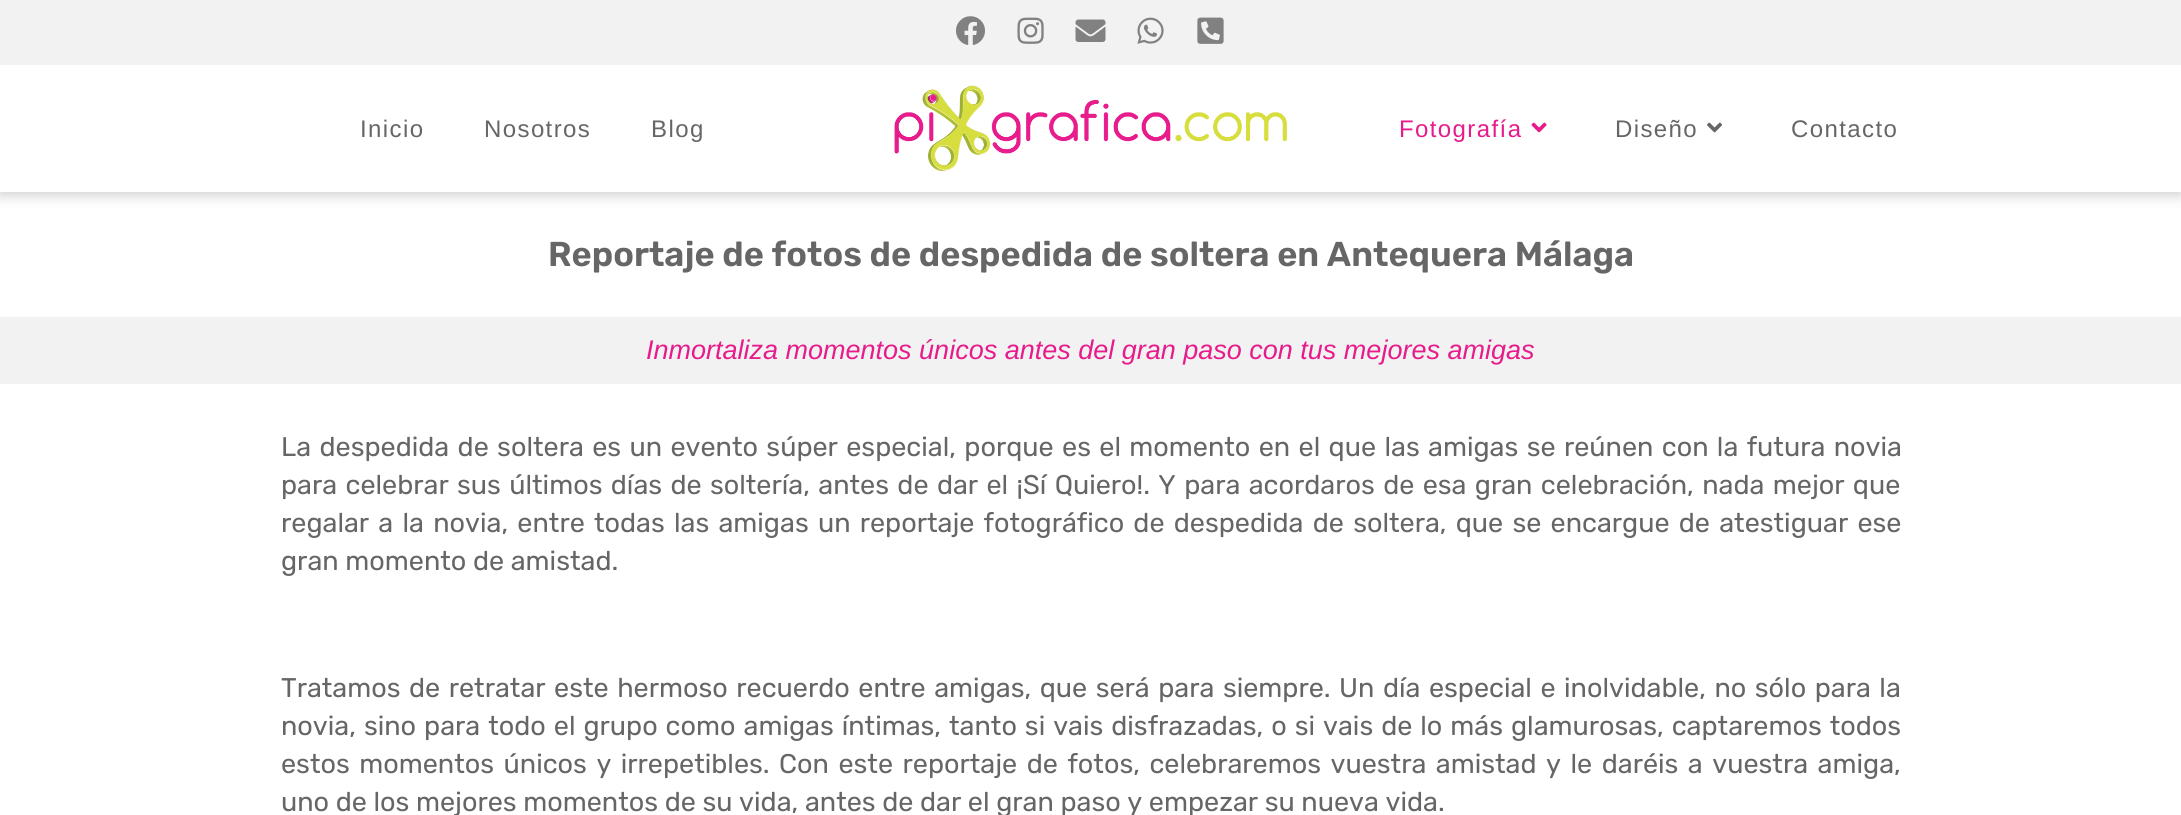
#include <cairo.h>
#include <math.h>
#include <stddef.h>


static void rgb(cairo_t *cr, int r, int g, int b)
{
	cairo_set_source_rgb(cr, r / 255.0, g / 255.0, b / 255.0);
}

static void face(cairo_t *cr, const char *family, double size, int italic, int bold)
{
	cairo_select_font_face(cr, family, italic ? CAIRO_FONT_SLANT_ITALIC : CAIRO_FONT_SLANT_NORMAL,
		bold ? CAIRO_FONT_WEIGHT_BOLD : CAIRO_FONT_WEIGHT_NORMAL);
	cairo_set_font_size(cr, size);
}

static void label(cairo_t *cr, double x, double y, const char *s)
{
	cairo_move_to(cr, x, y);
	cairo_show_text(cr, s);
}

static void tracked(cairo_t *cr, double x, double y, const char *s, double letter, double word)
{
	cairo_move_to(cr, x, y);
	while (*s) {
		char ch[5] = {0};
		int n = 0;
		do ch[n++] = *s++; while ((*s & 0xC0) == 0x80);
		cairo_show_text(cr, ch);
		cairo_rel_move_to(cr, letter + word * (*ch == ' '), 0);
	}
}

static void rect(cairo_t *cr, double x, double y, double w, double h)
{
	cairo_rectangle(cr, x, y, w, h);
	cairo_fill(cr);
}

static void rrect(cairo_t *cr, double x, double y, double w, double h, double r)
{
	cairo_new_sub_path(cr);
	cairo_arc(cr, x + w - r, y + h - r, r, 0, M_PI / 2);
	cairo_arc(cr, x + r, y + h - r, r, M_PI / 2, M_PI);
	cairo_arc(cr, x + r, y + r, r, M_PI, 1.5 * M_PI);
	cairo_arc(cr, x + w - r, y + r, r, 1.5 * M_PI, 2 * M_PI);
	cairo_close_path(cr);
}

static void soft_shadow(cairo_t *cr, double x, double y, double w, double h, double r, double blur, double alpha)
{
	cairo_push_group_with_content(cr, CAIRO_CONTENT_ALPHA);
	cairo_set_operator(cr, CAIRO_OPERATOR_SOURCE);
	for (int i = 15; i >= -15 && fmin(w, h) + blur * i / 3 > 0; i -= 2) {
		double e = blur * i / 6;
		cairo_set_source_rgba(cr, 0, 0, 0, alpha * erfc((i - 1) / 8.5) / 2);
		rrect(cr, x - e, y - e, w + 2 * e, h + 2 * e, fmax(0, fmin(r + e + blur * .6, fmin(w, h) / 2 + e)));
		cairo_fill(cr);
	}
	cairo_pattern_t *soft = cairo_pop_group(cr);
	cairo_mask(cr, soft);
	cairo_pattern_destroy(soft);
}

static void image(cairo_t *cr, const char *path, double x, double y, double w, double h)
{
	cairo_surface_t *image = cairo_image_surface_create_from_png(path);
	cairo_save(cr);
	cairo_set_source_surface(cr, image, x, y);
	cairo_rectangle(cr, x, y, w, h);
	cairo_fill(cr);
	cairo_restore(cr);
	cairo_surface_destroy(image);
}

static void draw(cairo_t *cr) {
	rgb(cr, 255, 255, 255);
	cairo_paint(cr);
	cairo_save(cr);
	cairo_rectangle(cr, 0, 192, 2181, 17);
	cairo_clip(cr);
	rgb(cr, 206, 206, 206);
	soft_shadow(cr, 0, 68, 2181, 127, 0, 7, 1);
	cairo_restore(cr);
	rgb(cr, 242, 242, 242);
	rect(cr, 0, 0, 2181, 65);
	image(cr, "image0.png", 956, 16, 29, 29);
	image(cr, "image1.png", 1017, 17, 27, 27);
	image(cr, "image2.png", 1075, 19, 31, 23);
	image(cr, "image3.png", 1137, 17, 27, 27);
	image(cr, "image4.png", 1197, 17, 27, 27);
	face(cr, "Liberation Sans", 24, 0, 0);
	rgb(cr, 102, 102, 102);
	tracked(cr, 360, 137, "Inicio", 1.4, 0);
	tracked(cr, 484, 137, "Nosotros", 1.4, 0);
	tracked(cr, 651, 137, "Blog", 1.4, 0);
	image(cr, "image5.png", 894, 85, 393, 86);
	rgb(cr, 231, 27, 139);
	tracked(cr, 1399, 137, "Fotografía", 1.4, 0);
	image(cr, "image6.png", 1531, 122, 16, 11);
	rgb(cr, 102, 102, 102);
	tracked(cr, 1615, 137, "Diseño", 1.4, 0);
	image(cr, "image7.png", 1707, 122, 15, 11);
	tracked(cr, 1791, 137, "Contacto", 1.4, 0);
	face(cr, "Rubik SemiBold", 34.5, 0, 0);
	label(cr, 548, 266, "Reportaje de fotos de despedida de soltera en Antequera Málaga");
	rgb(cr, 242, 242, 242);
	rect(cr, 0, 317, 2181, 67);
	face(cr, "Liberation Sans", 27, 1, 0);
	rgb(cr, 231, 27, 139);
	label(cr, 646, 359, "Inmortaliza momentos únicos antes del gran paso con tus mejores amigas");
	face(cr, "Rubik", 27, 0, 0);
	rgb(cr, 102, 102, 102);
	tracked(cr, 281, 456, "La despedida de soltera es un evento súper especial, porque es el momento en el que las amigas se reúnen con la futura novia", 0, 1.75);
	tracked(cr, 281, 494, "para celebrar sus últimos días de soltería, antes de dar el ¡Sí Quiero!. Y para acordaros de esa gran celebración, nada mejor que", 0, 1.75);
	tracked(cr, 281, 532, "regalar a la novia, entre todas las amigas un reportaje fotográfico de despedida de soltera, que se encargue de atestiguar ese", 0, 2.6);
	label(cr, 281, 570, "gran momento de amistad.");
	tracked(cr, 281, 697, "Tratamos de retratar este hermoso recuerdo entre amigas, que será para siempre. Un día especial e inolvidable, no sólo para la", 0, 1.9);
	tracked(cr, 281, 735, "novia, sino para todo el grupo como amigas íntimas, tanto si vais disfrazadas, o si vais de lo más glamurosas, captaremos todos", 0, 1.35);
	tracked(cr, 281, 773, "estos momentos únicos y irrepetibles. Con este reportaje de fotos, celebraremos vuestra amistad y le daréis a vuestra amiga,", 0, 2.9);
	label(cr, 281, 811, "uno de los mejores momentos de su vida, antes de dar el gran paso y empezar su nueva vida.");
}

int main(void) {
	cairo_surface_t *surface = cairo_image_surface_create(CAIRO_FORMAT_RGB24, 2181, 815);
	cairo_t *cr = cairo_create(surface);
	cairo_font_options_t *options = cairo_font_options_create();
	cairo_font_options_set_hint_metrics(options, CAIRO_HINT_METRICS_OFF);
	cairo_font_options_set_hint_style(options, CAIRO_HINT_STYLE_NONE);
	cairo_set_font_options(cr, options);
	cairo_set_miter_limit(cr, 4);
	draw(cr);
	cairo_surface_write_to_png(surface, "render.png");
	cairo_font_options_destroy(options);
	cairo_destroy(cr);
	cairo_surface_destroy(surface);
	return 0;
}
